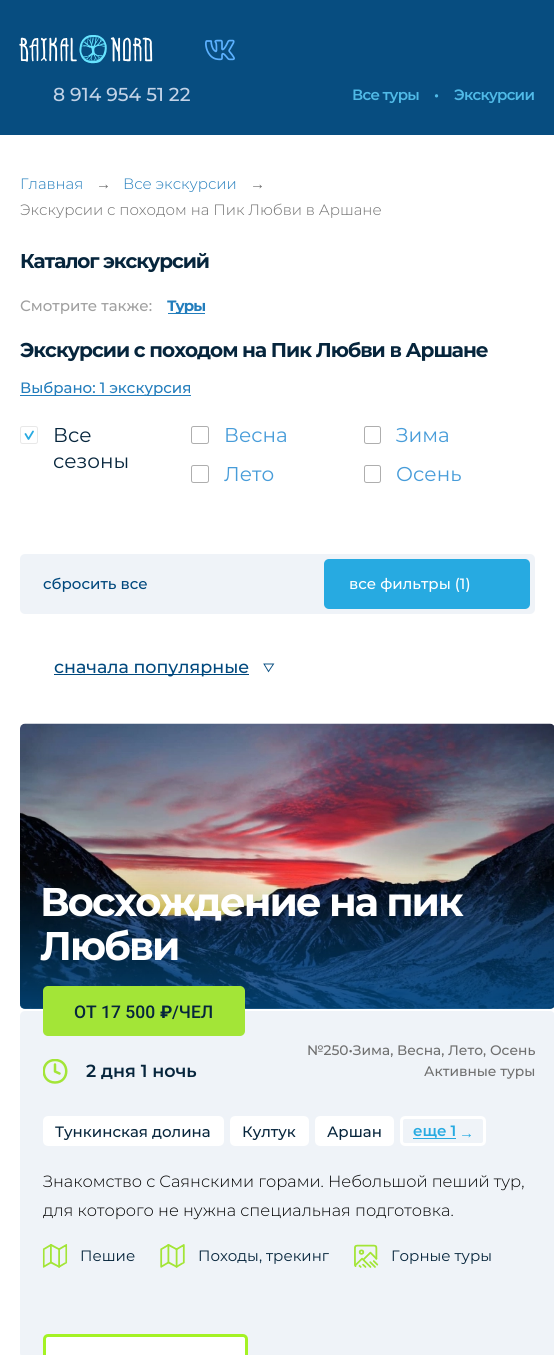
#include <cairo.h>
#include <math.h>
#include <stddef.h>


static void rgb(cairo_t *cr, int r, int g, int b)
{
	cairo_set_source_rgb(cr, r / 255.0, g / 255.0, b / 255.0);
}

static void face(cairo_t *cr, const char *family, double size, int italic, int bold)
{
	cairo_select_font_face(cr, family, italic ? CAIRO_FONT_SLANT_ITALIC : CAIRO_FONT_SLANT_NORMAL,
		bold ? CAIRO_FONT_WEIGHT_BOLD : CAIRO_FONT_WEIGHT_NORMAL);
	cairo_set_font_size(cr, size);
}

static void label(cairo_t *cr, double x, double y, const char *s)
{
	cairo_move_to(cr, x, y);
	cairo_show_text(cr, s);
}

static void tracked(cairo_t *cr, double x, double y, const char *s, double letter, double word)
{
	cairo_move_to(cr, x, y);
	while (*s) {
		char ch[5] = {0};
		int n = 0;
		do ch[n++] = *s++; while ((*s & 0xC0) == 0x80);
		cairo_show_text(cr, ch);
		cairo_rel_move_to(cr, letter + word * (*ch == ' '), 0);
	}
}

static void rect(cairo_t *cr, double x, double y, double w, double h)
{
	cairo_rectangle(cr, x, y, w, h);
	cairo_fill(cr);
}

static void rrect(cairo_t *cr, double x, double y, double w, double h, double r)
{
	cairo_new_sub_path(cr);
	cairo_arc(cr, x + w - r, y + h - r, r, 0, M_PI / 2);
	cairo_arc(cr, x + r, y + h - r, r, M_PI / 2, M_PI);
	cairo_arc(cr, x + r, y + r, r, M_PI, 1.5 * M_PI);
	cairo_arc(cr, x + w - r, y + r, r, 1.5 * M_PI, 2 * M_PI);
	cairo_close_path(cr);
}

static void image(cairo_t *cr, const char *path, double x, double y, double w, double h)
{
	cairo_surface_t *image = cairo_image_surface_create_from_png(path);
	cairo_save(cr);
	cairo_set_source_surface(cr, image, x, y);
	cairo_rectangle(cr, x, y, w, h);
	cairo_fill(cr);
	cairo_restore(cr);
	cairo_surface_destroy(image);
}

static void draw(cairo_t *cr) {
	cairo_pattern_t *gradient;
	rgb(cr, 255, 255, 255);
	cairo_paint(cr);
	rgb(cr, 7, 77, 128);
	rect(cr, 0, 0, 554, 135);
	image(cr, "image0.png", 19, 35, 134, 29);
	image(cr, "image1.png", 205, 39, 30, 22);
	face(cr, "Montserrat Medium", 18.75, 0, 0);
	rgb(cr, 195, 211, 231);
	label(cr, 53, 101, "8 914 954 51 22");
	face(cr, "Montserrat SemiBold", 15, 0, 0);
	rgb(cr, 80, 186, 231);
	tracked(cr, 352, 100, "Все туры", -0.75, 0);
	tracked(cr, 434, 100, "•", -0.75, 0);
	tracked(cr, 454, 100, "Экскурсии", -0.75, 0);
	face(cr, "Montserrat Light", 15, 0, 0);
	rgb(cr, 34, 125, 188);
	label(cr, 20, 189, "Главная");
	face(cr, "Liberation Serif", 15, 0, 0);
	rgb(cr, 111, 111, 111);
	label(cr, 96, 189, "→");
	face(cr, "Montserrat Light", 15, 0, 0);
	rgb(cr, 34, 125, 188);
	label(cr, 123, 189, "Все экскурсии");
	face(cr, "Liberation Serif", 15, 0, 0);
	rgb(cr, 111, 111, 111);
	label(cr, 250, 189, "→");
	face(cr, "Montserrat Light", 15, 0, 0);
	label(cr, 20, 215, "Экскурсии с походом на Пик Любви в Аршане");
	face(cr, "Montserrat", 20, 0, 1);
	rgb(cr, 6, 37, 60);
	tracked(cr, 20, 268, "Каталог экскурсий", -1.1, 0);
	face(cr, "Montserrat Medium", 15, 0, 0);
	rgb(cr, 160, 160, 160);
	label(cr, 20, 311, "Смотрите также:");
	rgb(cr, 34, 125, 188);
	rect(cr, 168, 313, 37, 1);
	face(cr, "Montserrat", 15, 0, 1);
	tracked(cr, 167, 311, "Туры", -1, 0);
	face(cr, "Montserrat", 20, 0, 1);
	rgb(cr, 6, 37, 60);
	tracked(cr, 20, 357, "Экскурсии с походом на Пик Любви в Аршане", -1, 0);
	rgb(cr, 34, 125, 188);
	rect(cr, 20, 395, 171, 1);
	face(cr, "Montserrat Medium", 15, 0, 0);
	label(cr, 20, 393, "Выбрано: 1 экскурсия");
	rrect(cr, 20.5, 426.5, 17, 17, 2);
	rgb(cr, 232, 232, 232);
	cairo_set_line_width(cr, 1);
	cairo_stroke(cr);
	cairo_new_path(cr);
	cairo_move_to(cr, 25.5, 434);
	cairo_line_to(cr, 28.5, 439);
	cairo_line_to(cr, 33, 431.5);
	rgb(cr, 39, 170, 225);
	cairo_set_line_width(cr, 1.8);
	cairo_set_line_cap(cr, CAIRO_LINE_CAP_ROUND);
	cairo_set_line_join(cr, CAIRO_LINE_JOIN_ROUND);
	cairo_stroke(cr);
	face(cr, "Montserrat", 20, 0, 0);
	rgb(cr, 6, 37, 60);
	label(cr, 53, 442, "Все");
	label(cr, 53, 468, "сезоны");
	rrect(cr, 191.5, 426.5, 17, 17, 2);
	rgb(cr, 174, 174, 174);
	cairo_set_line_width(cr, 1);
	cairo_set_line_cap(cr, CAIRO_LINE_CAP_BUTT);
	cairo_set_line_join(cr, CAIRO_LINE_JOIN_MITER);
	cairo_stroke(cr);
	rgb(cr, 71, 156, 217);
	label(cr, 224, 442, "Весна");
	rrect(cr, 364.5, 426.5, 16, 17, 2);
	rgb(cr, 174, 174, 174);
	cairo_stroke(cr);
	rgb(cr, 71, 156, 217);
	label(cr, 396, 442, "Зима");
	rrect(cr, 191.5, 465.5, 17, 17, 2);
	rgb(cr, 174, 174, 174);
	cairo_stroke(cr);
	rgb(cr, 71, 156, 217);
	label(cr, 224, 481, "Лето");
	rrect(cr, 364.5, 465.5, 16, 17, 2);
	rgb(cr, 174, 174, 174);
	cairo_stroke(cr);
	rgb(cr, 71, 156, 217);
	label(cr, 396, 481, "Осень");
	rgb(cr, 239, 243, 248);
	rrect(cr, 20, 554, 515, 60, 5);
	cairo_fill(cr);
	face(cr, "Montserrat Medium", 15, 0, 0);
	rgb(cr, 0, 72, 125);
	label(cr, 43, 589, "сбросить все");
	rgb(cr, 39, 170, 225);
	rrect(cr, 324, 559, 206, 50, 5);
	cairo_fill(cr);
	rgb(cr, 255, 255, 255);
	label(cr, 349, 589, "все фильтры (1)");
	rgb(cr, 0, 72, 125);
	rect(cr, 54, 674, 195, 1);
	face(cr, "Montserrat Medium", 17.5, 0, 0);
	label(cr, 54, 673, "сначала популярные");
	cairo_new_path(cr);
	cairo_move_to(cr, 264, 664);
	cairo_line_to(cr, 273.5, 664);
	cairo_line_to(cr, 268.5, 671.5);
	cairo_close_path(cr);
	cairo_set_line_width(cr, 0.9);
	cairo_stroke(cr);
	image(cr, "image2.png", 20, 723, 534, 286);
	gradient = cairo_pattern_create_linear(288, 1009, 288, 875);
	cairo_pattern_add_color_stop_rgba(gradient, 0, 0.004, 0.341, 0.596, 0.7);
	cairo_pattern_add_color_stop_rgba(gradient, 0.25, 0.004, 0.341, 0.596, 0.53);
	cairo_pattern_add_color_stop_rgba(gradient, 0.5, 0.004, 0.341, 0.596, 0.36);
	cairo_pattern_add_color_stop_rgba(gradient, 0.76, 0.004, 0.341, 0.596, 0.18);
	cairo_pattern_add_color_stop_rgba(gradient, 1, 0.004, 0.341, 0.596, 0);
	cairo_set_source(cr, gradient);
	cairo_pattern_destroy(gradient);
	cairo_new_path(cr);
	cairo_move_to(cr, 20, 875);
	cairo_line_to(cr, 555, 875);
	cairo_line_to(cr, 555, 1004);
	cairo_curve_to(cr, 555, 1007, 553, 1009, 550, 1009);
	cairo_line_to(cr, 25, 1009);
	cairo_curve_to(cr, 22, 1009, 20, 1007, 20, 1004);
	cairo_close_path(cr);
	cairo_fill(cr);
	face(cr, "Montserrat", 40, 0, 1);
	rgb(cr, 255, 255, 255);
	tracked(cr, 40, 916, "Восхождение на пик", -2, 0);
	tracked(cr, 40, 960, "Любви", -2, 0);
	rgb(cr, 239, 243, 248);
	rrect(cr, 20, 1011, 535, 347, 5);
	cairo_fill(cr);
	rgb(cr, 163, 229, 55);
	rrect(cr, 43, 986, 202, 50, 5);
	cairo_fill(cr);
	face(cr, "Roboto Medium", 17.5, 0, 0);
	rgb(cr, 6, 37, 60);
	label(cr, 74, 1018, "ОТ 17 500");
	face(cr, "Roboto", 17.5, 0, 1);
	label(cr, 160, 1018, "₽");
	face(cr, "Roboto Medium", 17.5, 0, 0);
	label(cr, 172, 1018, "/ЧЕЛ");
	cairo_save(cr);
	cairo_rectangle(cr, 43, 1059, 25, 25);
	cairo_clip(cr);
	cairo_new_path(cr);
	cairo_move_to(cr, 55, 1082.5);
	cairo_curve_to(cr, 70, 1082.5, 70, 1060, 55, 1060);
	cairo_curve_to(cr, 40, 1060, 40, 1082.5, 55, 1082.5);
	cairo_close_path(cr);
	rgb(cr, 163, 229, 55);
	cairo_set_line_width(cr, 2.5);
	cairo_set_line_cap(cr, CAIRO_LINE_CAP_ROUND);
	cairo_set_line_join(cr, CAIRO_LINE_JOIN_ROUND);
	cairo_stroke(cr);
	cairo_restore(cr);
	cairo_new_path(cr);
	cairo_move_to(cr, 55, 1064.5);
	cairo_line_to(cr, 55, 1071.5);
	cairo_line_to(cr, 59.5, 1073.5);
	rgb(cr, 163, 229, 55);
	cairo_set_line_width(cr, 2.5);
	cairo_set_line_cap(cr, CAIRO_LINE_CAP_ROUND);
	cairo_set_line_join(cr, CAIRO_LINE_JOIN_ROUND);
	cairo_stroke(cr);
	face(cr, "Montserrat SemiBold", 17.5, 0, 0);
	rgb(cr, 6, 37, 60);
	label(cr, 86, 1077, "2 дня 1 ночь");
	face(cr, "Montserrat Medium", 13.75, 0, 0);
	rgb(cr, 111, 111, 111);
	label(cr, 307, 1055, "№250•Зима, Весна, Лето, Осень");
	label(cr, 424, 1076, "Активные туры");
	rgb(cr, 255, 255, 255);
	rrect(cr, 44.5, 1117.5, 178, 27, 3.5);
	cairo_fill_preserve(cr);
	cairo_set_line_width(cr, 3);
	cairo_set_line_cap(cr, CAIRO_LINE_CAP_BUTT);
	cairo_set_line_join(cr, CAIRO_LINE_JOIN_MITER);
	cairo_stroke(cr);
	face(cr, "Montserrat Medium", 15, 0, 0);
	rgb(cr, 6, 37, 60);
	label(cr, 55, 1137, "Тункинская долина");
	rgb(cr, 255, 255, 255);
	rrect(cr, 231.5, 1117.5, 76, 27, 3.5);
	cairo_fill_preserve(cr);
	cairo_stroke(cr);
	rgb(cr, 6, 37, 60);
	label(cr, 242, 1137, "Култук");
	rgb(cr, 255, 255, 255);
	rrect(cr, 316.5, 1117.5, 76, 27, 3.5);
	cairo_fill_preserve(cr);
	cairo_stroke(cr);
	rgb(cr, 6, 37, 60);
	label(cr, 327, 1137, "Аршан");
	rrect(cr, 401.5, 1117.5, 83, 27, 3.5);
	rgb(cr, 255, 255, 255);
	cairo_stroke(cr);
	face(cr, "Montserrat SemiBold", 15, 0, 0);
	rgb(cr, 39, 170, 225);
	label(cr, 413, 1136, "еще 1");
	rect(cr, 413, 1138, 43, 1);
	face(cr, "Liberation Serif", 15, 0, 0);
	label(cr, 459, 1138, "→");
	face(cr, "Montserrat Light", 16.25, 0, 0);
	rgb(cr, 0, 0, 0);
	label(cr, 43, 1187, "Знакомство с Саянскими горами. Небольшой пеший тур,");
	label(cr, 43, 1216, "для которого не нужна специальная подготовка.");
	image(cr, "image3.png", 42, 1244, 26, 24);
	face(cr, "Montserrat", 15, 0, 0);
	rgb(cr, 6, 37, 60);
	label(cr, 80, 1261, "Пешие");
	image(cr, "image4.png", 160, 1244, 25, 24);
	label(cr, 198, 1261, "Походы, трекинг");
	image(cr, "image5.png", 354, 1244, 25, 24);
	label(cr, 391, 1261, "Горные туры");
	rgb(cr, 255, 255, 255);
	rrect(cr, 44.5, 1335.5, 202, 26, 3.5);
	cairo_fill_preserve(cr);
	rgb(cr, 164, 242, 36);
	cairo_stroke(cr);
}

int main(void) {
	cairo_surface_t *surface = cairo_image_surface_create(CAIRO_FORMAT_RGB24, 554, 1355);
	cairo_t *cr = cairo_create(surface);
	cairo_font_options_t *options = cairo_font_options_create();
	cairo_font_options_set_hint_metrics(options, CAIRO_HINT_METRICS_OFF);
	cairo_font_options_set_hint_style(options, CAIRO_HINT_STYLE_NONE);
	cairo_set_font_options(cr, options);
	cairo_set_miter_limit(cr, 4);
	draw(cr);
	cairo_surface_write_to_png(surface, "render.png");
	cairo_font_options_destroy(options);
	cairo_destroy(cr);
	cairo_surface_destroy(surface);
	return 0;
}
